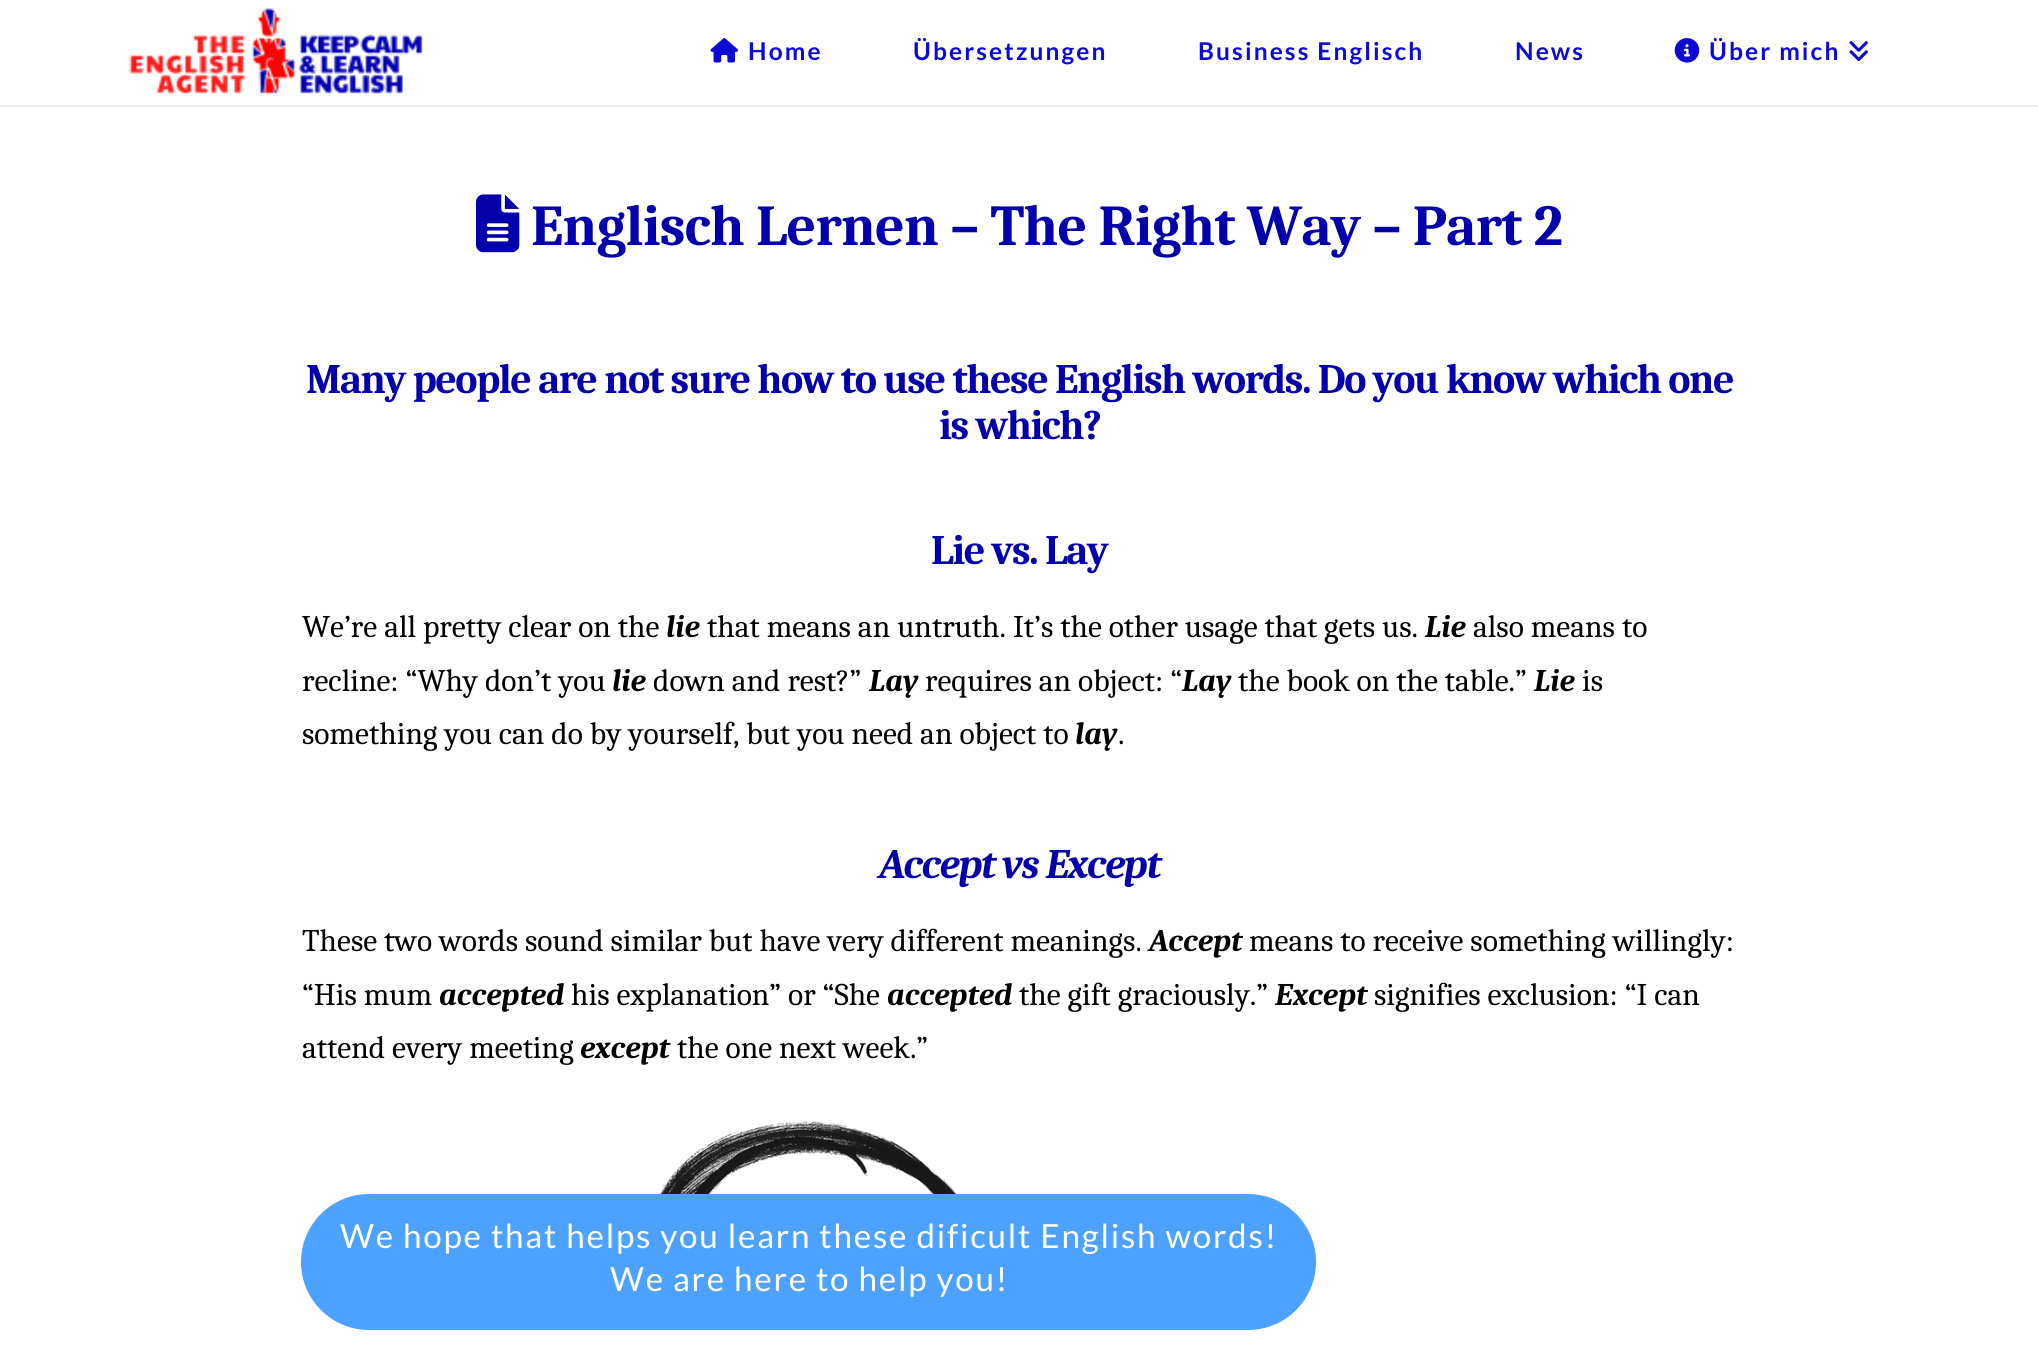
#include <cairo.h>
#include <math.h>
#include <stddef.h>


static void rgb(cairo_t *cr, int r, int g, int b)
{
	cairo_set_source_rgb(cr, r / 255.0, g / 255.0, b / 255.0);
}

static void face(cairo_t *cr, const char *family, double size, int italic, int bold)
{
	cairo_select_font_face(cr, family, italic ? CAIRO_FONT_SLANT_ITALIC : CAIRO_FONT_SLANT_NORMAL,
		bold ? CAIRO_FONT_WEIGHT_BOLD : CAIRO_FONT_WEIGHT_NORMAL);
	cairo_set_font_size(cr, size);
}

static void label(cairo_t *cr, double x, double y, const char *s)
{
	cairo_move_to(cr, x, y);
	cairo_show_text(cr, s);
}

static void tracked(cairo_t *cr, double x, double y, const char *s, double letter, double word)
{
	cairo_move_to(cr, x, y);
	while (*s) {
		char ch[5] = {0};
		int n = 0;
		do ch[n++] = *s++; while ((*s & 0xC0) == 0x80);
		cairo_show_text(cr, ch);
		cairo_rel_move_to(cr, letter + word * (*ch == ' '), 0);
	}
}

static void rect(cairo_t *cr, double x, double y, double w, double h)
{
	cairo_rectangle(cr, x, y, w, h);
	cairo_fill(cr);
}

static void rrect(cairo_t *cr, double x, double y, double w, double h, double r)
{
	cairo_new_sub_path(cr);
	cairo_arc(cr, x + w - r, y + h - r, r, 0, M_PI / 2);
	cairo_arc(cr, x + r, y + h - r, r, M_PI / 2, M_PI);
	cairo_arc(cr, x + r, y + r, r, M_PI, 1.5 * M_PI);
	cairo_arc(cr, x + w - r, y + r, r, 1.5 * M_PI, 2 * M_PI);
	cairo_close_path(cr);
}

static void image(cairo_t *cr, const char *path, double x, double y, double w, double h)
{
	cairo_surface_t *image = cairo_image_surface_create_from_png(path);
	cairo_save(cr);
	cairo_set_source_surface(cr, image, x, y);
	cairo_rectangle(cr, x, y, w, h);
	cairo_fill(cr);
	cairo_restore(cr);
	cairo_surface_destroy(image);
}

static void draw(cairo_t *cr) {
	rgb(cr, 255, 255, 255);
	cairo_paint(cr);
	rgb(cr, 236, 236, 236);
	rect(cr, 0, 105, 2038, 2);
	image(cr, "image0.png", 129, 8, 294, 87);
	image(cr, "image1.png", 710, 38, 28, 25);
	face(cr, "Lato", 24.5, 0, 1);
	rgb(cr, 14, 10, 214);
	tracked(cr, 748, 60, "Home", 2.1, 0);
	tracked(cr, 913, 60, "Übersetzungen", 2.1, 0);
	tracked(cr, 1198, 60, "Business Englisch", 2.1, 0);
	tracked(cr, 1515, 60, "News", 2.1, 0);
	image(cr, "image2.png", 1674, 38, 26, 25);
	tracked(cr, 1709, 60, "Über mich", 2.1, 0);
	image(cr, "image3.png", 1849, 41, 19, 20);
	image(cr, "image4.png", 476, 194, 44, 59);
	face(cr, "Caladea", 57.75, 0, 1);
	rgb(cr, 3, 0, 171);
	tracked(cr, 531, 245, "Englisch Lernen – The Right Way – Part 2", -0.7, 0);
	face(cr, "Caladea", 42, 0, 1);
	tracked(cr, 306, 393, "Many people are not sure how to use these English words. Do you know which one", -1.47, 0);
	tracked(cr, 939, 439, "is which?", -1.47, 0);
	tracked(cr, 931, 564, "Lie vs. Lay", -1.47, 0);
	face(cr, "Caladea", 31.5, 0, 0);
	rgb(cr, 0, 0, 0);
	label(cr, 302, 637, "We’re all pretty clear on the");
	face(cr, "Caladea", 31.5, 1, 1);
	label(cr, 666, 637, "lie");
	face(cr, "Caladea", 31.5, 0, 0);
	label(cr, 707, 637, "that means an untruth. It’s the other usage that gets us.");
	face(cr, "Caladea", 31.5, 1, 1);
	label(cr, 1425, 637, "Lie");
	face(cr, "Caladea", 31.5, 0, 0);
	label(cr, 1473, 637, "also means to");
	label(cr, 302, 691, "recline: “Why don’t you");
	face(cr, "Caladea", 31.5, 1, 1);
	label(cr, 612, 691, "lie");
	face(cr, "Caladea", 31.5, 0, 0);
	label(cr, 653, 691, "down and rest?”");
	face(cr, "Caladea", 31.5, 1, 1);
	label(cr, 869, 691, "Lay");
	face(cr, "Caladea", 31.5, 0, 0);
	label(cr, 925, 691, "requires an object: “");
	face(cr, "Caladea", 31.5, 1, 1);
	label(cr, 1182, 691, "Lay");
	face(cr, "Caladea", 31.5, 0, 0);
	label(cr, 1238, 691, "the book on the table.”");
	face(cr, "Caladea", 31.5, 1, 1);
	label(cr, 1534, 691, "Lie");
	face(cr, "Caladea", 31.5, 0, 0);
	label(cr, 1582, 691, "is");
	label(cr, 302, 744, "something you can do by yourself, but you need an object to");
	face(cr, "Caladea", 31.5, 1, 1);
	label(cr, 1075, 744, "lay");
	face(cr, "Caladea", 31.5, 0, 0);
	label(cr, 1118, 744, ".");
	face(cr, "Caladea", 42, 1, 1);
	rgb(cr, 3, 0, 171);
	tracked(cr, 879, 878, "Accept vs Except", -1.47, 0);
	face(cr, "Caladea", 31.5, 0, 0);
	rgb(cr, 0, 0, 0);
	label(cr, 302, 951, "These two words sound similar but have very different meanings.");
	face(cr, "Caladea", 31.5, 1, 1);
	label(cr, 1149, 951, "Accept");
	face(cr, "Caladea", 31.5, 0, 0);
	label(cr, 1249, 951, "means to receive something willingly:");
	label(cr, 302, 1005, "“His mum");
	face(cr, "Caladea", 31.5, 1, 1);
	label(cr, 439, 1005, "accepted");
	face(cr, "Caladea", 31.5, 0, 0);
	label(cr, 571, 1005, "his explanation” or “She");
	face(cr, "Caladea", 31.5, 1, 1);
	label(cr, 887, 1005, "accepted");
	face(cr, "Caladea", 31.5, 0, 0);
	label(cr, 1019, 1005, "the gift graciously.”");
	face(cr, "Caladea", 31.5, 1, 1);
	label(cr, 1275, 1005, "Except");
	face(cr, "Caladea", 31.5, 0, 0);
	label(cr, 1374, 1005, "signifies exclusion: “I can");
	label(cr, 302, 1058, "attend every meeting");
	face(cr, "Caladea", 31.5, 1, 1);
	label(cr, 580, 1058, "except");
	face(cr, "Caladea", 31.5, 0, 0);
	label(cr, 677, 1058, "the one next week.”");
	image(cr, "image5.png", 659, 1121, 298, 73);
	rgb(cr, 77, 161, 255);
	rrect(cr, 301, 1194, 1015, 136, 68);
	cairo_fill(cr);
	face(cr, "Lato", 33.25, 0, 0);
	rgb(cr, 255, 255, 255);
	tracked(cr, 340, 1248, "We hope that helps you learn these dificult English words!", 1.75, 0);
	tracked(cr, 610, 1291, "We are here to help you!", 1.75, 0);
}

int main(void) {
	cairo_surface_t *surface = cairo_image_surface_create(CAIRO_FORMAT_RGB24, 2038, 1363);
	cairo_t *cr = cairo_create(surface);
	cairo_font_options_t *options = cairo_font_options_create();
	cairo_font_options_set_hint_metrics(options, CAIRO_HINT_METRICS_OFF);
	cairo_font_options_set_hint_style(options, CAIRO_HINT_STYLE_NONE);
	cairo_set_font_options(cr, options);
	cairo_set_miter_limit(cr, 4);
	draw(cr);
	cairo_surface_write_to_png(surface, "render.png");
	cairo_font_options_destroy(options);
	cairo_destroy(cr);
	cairo_surface_destroy(surface);
	return 0;
}
